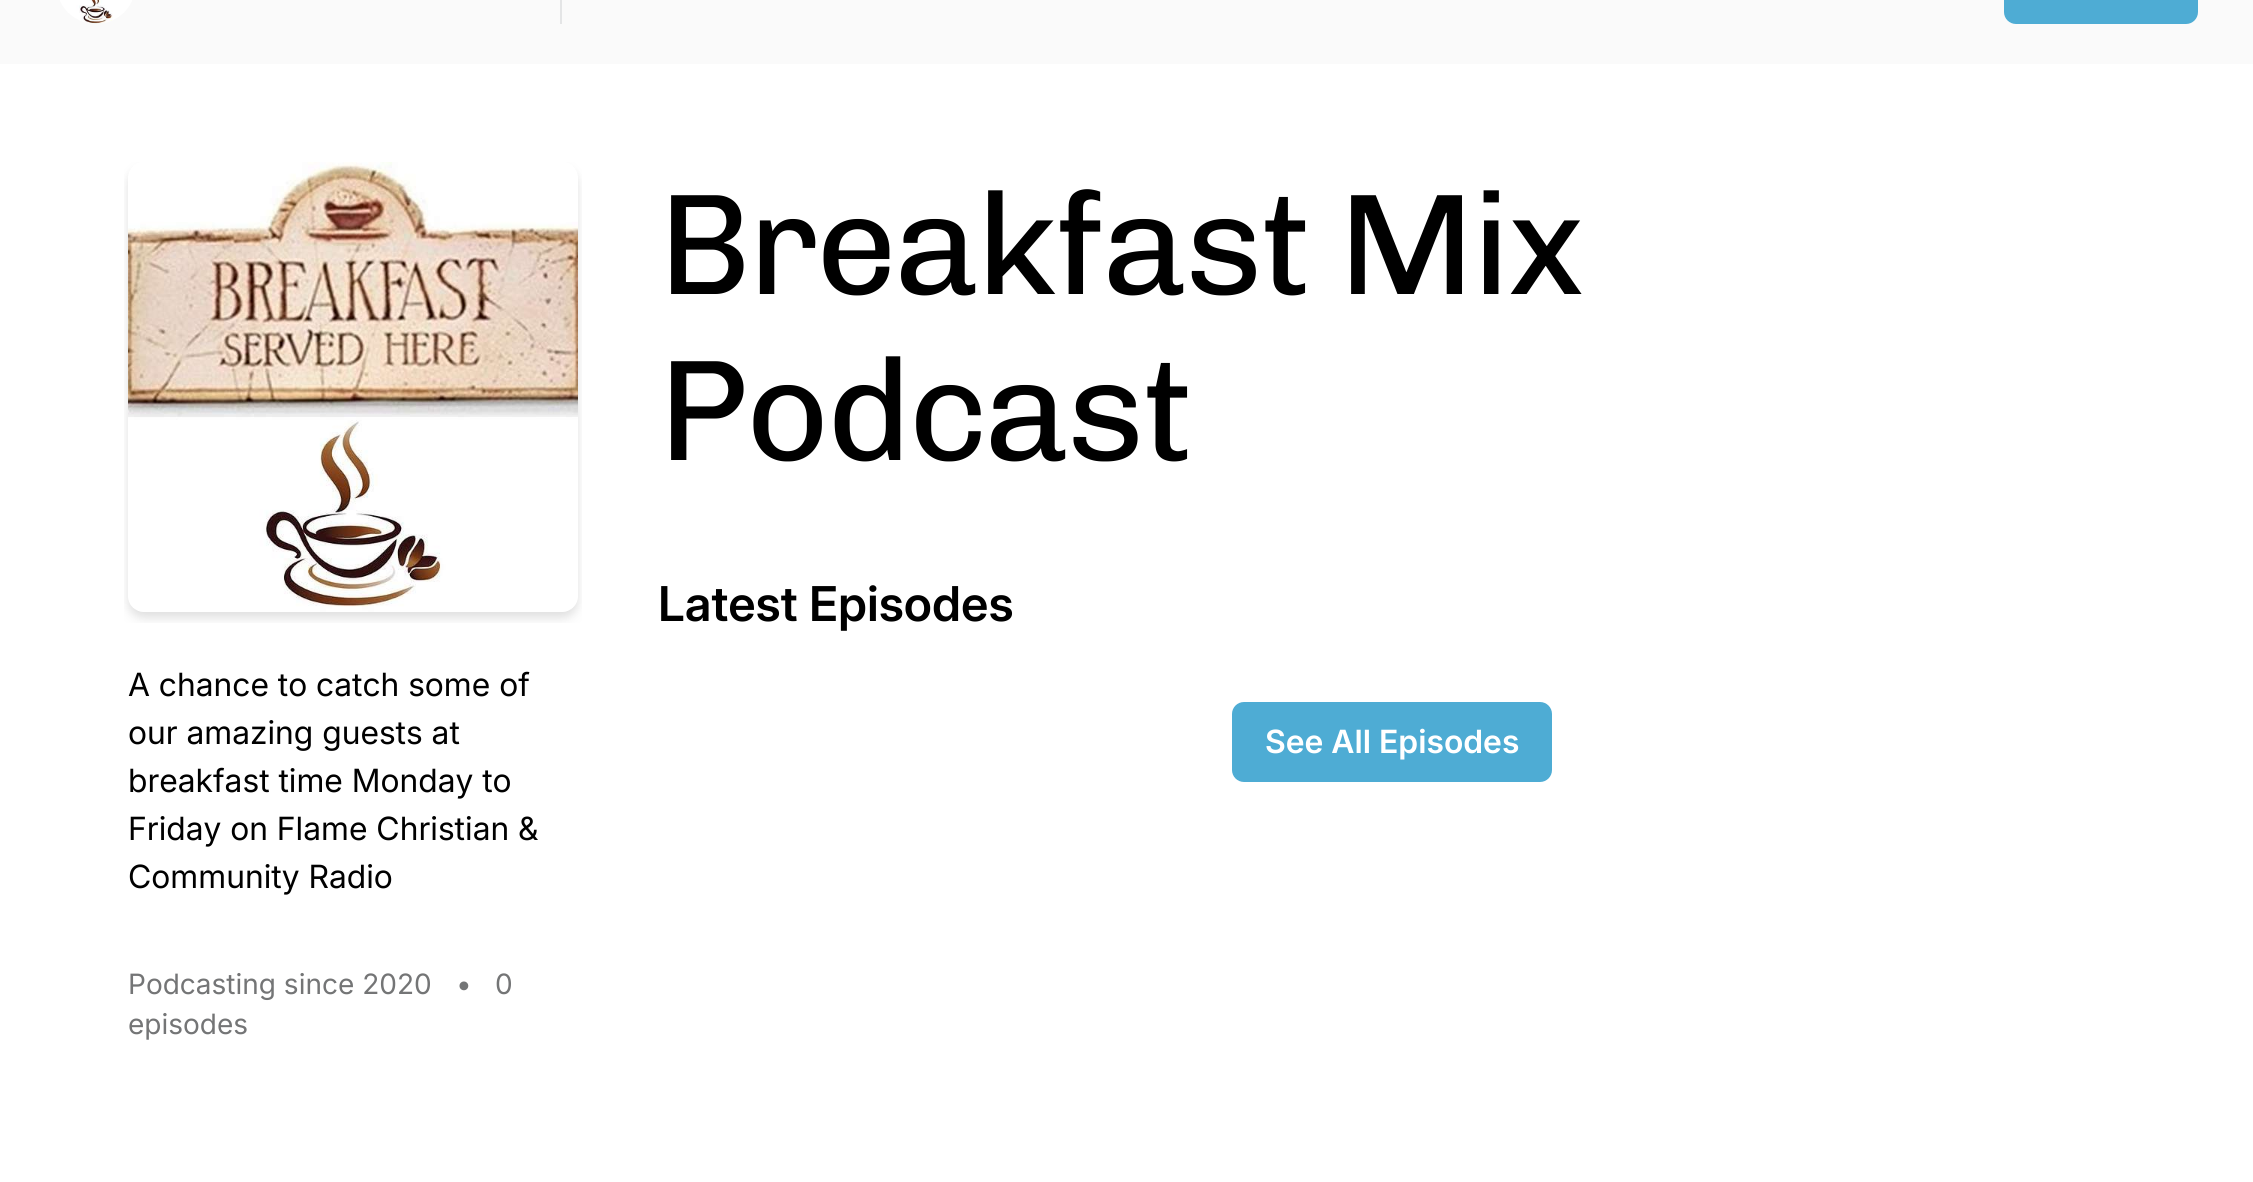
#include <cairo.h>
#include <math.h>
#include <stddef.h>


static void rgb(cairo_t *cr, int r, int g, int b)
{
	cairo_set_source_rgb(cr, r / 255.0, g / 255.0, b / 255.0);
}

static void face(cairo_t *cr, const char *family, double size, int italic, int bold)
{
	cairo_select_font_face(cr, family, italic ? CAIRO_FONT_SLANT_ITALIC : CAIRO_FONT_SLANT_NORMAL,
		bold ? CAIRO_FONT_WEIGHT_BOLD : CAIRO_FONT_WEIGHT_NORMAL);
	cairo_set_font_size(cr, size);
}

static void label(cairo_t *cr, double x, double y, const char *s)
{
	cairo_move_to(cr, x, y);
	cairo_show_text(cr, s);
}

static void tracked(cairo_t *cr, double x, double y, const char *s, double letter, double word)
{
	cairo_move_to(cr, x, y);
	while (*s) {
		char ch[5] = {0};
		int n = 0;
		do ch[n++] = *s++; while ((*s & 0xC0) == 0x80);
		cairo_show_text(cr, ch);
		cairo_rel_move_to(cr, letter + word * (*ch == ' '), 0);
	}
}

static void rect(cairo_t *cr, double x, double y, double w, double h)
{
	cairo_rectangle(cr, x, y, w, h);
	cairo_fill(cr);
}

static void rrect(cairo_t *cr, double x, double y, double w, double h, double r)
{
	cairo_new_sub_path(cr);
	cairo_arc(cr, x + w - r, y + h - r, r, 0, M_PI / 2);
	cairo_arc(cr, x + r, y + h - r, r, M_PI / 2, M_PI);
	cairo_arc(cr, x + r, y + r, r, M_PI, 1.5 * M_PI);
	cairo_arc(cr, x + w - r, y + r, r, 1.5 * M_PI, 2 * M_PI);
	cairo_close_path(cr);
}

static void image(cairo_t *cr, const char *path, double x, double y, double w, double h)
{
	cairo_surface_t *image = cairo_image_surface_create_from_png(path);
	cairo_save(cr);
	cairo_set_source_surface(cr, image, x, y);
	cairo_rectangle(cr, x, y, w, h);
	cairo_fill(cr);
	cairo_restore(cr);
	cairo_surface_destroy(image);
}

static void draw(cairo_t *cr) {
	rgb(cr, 255, 255, 255);
	cairo_paint(cr);
	rgb(cr, 250, 250, 250);
	rect(cr, 0, 0, 2253, 64);
	rgb(cr, 228, 229, 230);
	rect(cr, 560, 0, 2, 24);
	image(cr, "image0.png", 60, 0, 72, 24);
	rgb(cr, 78, 172, 212);
	rrect(cr, 2004, -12, 194, 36, 12);
	cairo_fill(cr);
	face(cr, "Chivo Medium", 144, 0, 0);
	rgb(cr, 0, 0, 0);
	tracked(cr, 658, 294, "Breakfast Mix", -3.6, 0);
	tracked(cr, 658, 460, "Podcast", -3.6, 0);
	face(cr, "Inter SemiBold", 48, 0, 0);
	label(cr, 658, 621, "Latest Episodes");
	rgb(cr, 78, 172, 212);
	rrect(cr, 1232, 702, 320, 80, 12);
	cairo_fill(cr);
	face(cr, "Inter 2 SemiBold", 32, 0, 0);
	rgb(cr, 255, 255, 255);
	label(cr, 1265, 753, "See All Episodes");
	image(cr, "image1.png", 124, 162, 458, 461);
	face(cr, "Inter", 32, 0, 0);
	rgb(cr, 0, 0, 0);
	label(cr, 128, 696, "A chance to catch some of");
	label(cr, 128, 744, "our amazing guests at");
	label(cr, 128, 792, "breakfast time Monday to");
	label(cr, 128, 840, "Friday on Flame Christian &");
	label(cr, 128, 888, "Community Radio");
	face(cr, "Inter 2", 28, 0, 0);
	rgb(cr, 116, 117, 118);
	label(cr, 128, 994, "Podcasting since 2020");
	label(cr, 456, 994, "•");
	label(cr, 495, 994, "0");
	label(cr, 128, 1034, "episodes");
}

int main(void) {
	cairo_surface_t *surface = cairo_image_surface_create(CAIRO_FORMAT_RGB24, 2253, 1182);
	cairo_t *cr = cairo_create(surface);
	cairo_font_options_t *options = cairo_font_options_create();
	cairo_font_options_set_hint_metrics(options, CAIRO_HINT_METRICS_OFF);
	cairo_font_options_set_hint_style(options, CAIRO_HINT_STYLE_NONE);
	cairo_set_font_options(cr, options);
	cairo_set_miter_limit(cr, 4);
	draw(cr);
	cairo_surface_write_to_png(surface, "render.png");
	cairo_font_options_destroy(options);
	cairo_destroy(cr);
	cairo_surface_destroy(surface);
	return 0;
}
